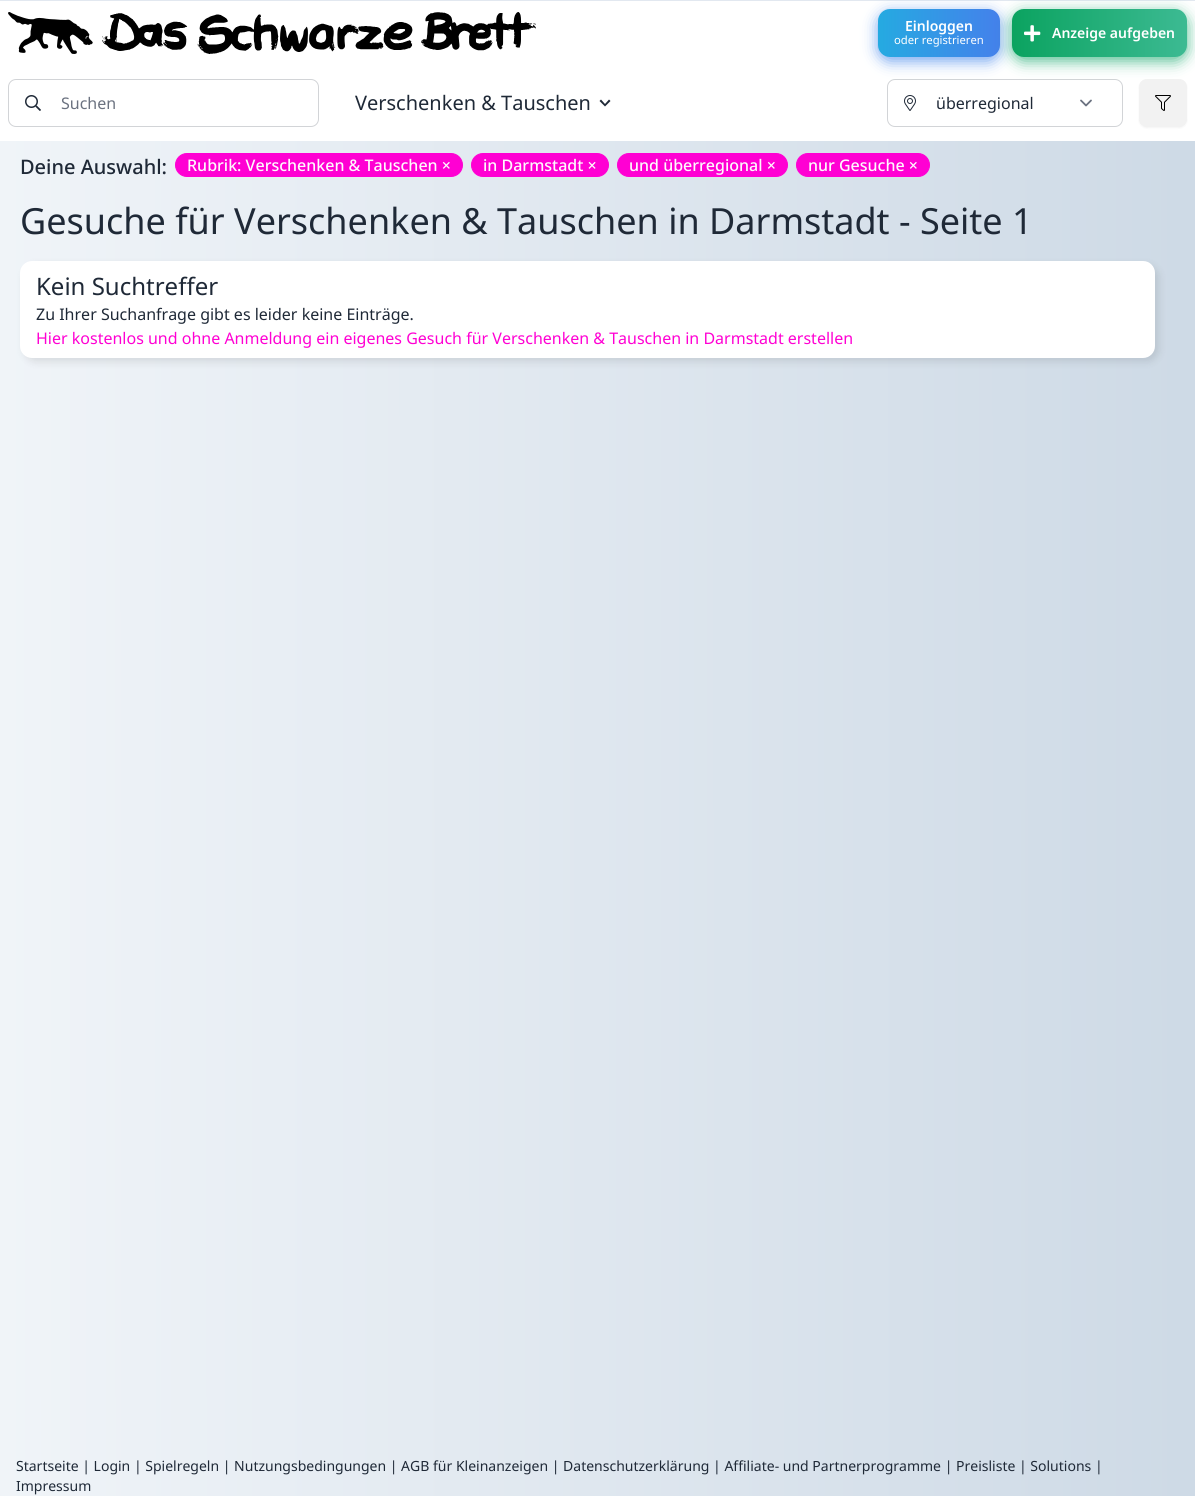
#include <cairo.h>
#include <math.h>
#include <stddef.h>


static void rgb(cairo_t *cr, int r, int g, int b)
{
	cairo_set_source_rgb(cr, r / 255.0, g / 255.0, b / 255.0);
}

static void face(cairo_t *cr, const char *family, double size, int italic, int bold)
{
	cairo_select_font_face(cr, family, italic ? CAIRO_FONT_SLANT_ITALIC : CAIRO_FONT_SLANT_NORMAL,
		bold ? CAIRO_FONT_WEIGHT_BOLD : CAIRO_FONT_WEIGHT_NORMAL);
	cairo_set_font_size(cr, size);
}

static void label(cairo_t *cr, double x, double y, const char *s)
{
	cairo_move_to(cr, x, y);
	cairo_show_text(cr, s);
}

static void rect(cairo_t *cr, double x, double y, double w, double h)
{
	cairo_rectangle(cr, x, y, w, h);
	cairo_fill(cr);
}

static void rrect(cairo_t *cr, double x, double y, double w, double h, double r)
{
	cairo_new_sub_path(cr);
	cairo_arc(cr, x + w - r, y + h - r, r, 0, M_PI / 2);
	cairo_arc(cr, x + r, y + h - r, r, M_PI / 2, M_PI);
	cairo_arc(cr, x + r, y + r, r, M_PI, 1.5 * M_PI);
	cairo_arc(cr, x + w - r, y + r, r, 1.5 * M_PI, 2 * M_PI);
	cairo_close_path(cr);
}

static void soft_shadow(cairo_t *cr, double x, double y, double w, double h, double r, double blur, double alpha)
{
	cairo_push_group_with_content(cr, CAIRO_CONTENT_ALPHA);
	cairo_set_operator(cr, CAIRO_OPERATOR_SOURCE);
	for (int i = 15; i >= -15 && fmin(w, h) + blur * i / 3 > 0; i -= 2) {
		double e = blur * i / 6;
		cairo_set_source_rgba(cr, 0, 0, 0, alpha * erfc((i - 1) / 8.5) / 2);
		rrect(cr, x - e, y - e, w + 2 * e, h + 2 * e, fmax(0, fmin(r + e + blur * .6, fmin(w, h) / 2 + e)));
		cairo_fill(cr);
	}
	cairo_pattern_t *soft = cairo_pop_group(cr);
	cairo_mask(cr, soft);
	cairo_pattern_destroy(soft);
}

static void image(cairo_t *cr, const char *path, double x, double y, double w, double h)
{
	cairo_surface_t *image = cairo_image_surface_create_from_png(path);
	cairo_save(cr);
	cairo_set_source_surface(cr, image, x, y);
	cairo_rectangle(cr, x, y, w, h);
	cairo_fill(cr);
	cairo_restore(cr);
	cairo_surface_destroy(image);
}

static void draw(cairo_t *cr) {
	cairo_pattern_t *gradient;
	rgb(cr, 255, 255, 255);
	cairo_paint(cr);
	rgb(cr, 226, 232, 240);
	rect(cr, 0, 0, 1195, 1);
	image(cr, "image0.png", 8, 12, 85, 42);
	image(cr, "image1.png", 102, 12, 434, 42);
	rrect(cr, 887.5, 79.5, 235, 47, 7.5);
	rgb(cr, 210, 212, 215);
	cairo_set_line_width(cr, 1);
	cairo_stroke(cr);
	rgb(cr, 65, 132, 234);
	soft_shadow(cr, 878, 13, 122, 48, 12, 7.5, 0.75);
	gradient = cairo_pattern_create_linear(878, 33, 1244, 33);
	cairo_pattern_add_color_stop_rgba(gradient, 0, 0.145, 0.667, 0.882, 1);
	cairo_pattern_add_color_stop_rgba(gradient, 0.33, 0.267, 0.506, 0.922, 1);
	cairo_pattern_add_color_stop_rgba(gradient, 0.67, 0.016, 0.745, 0.996, 1);
	cairo_pattern_add_color_stop_rgba(gradient, 1, 0.247, 0.525, 0.929, 1);
	cairo_set_source(cr, gradient);
	cairo_pattern_destroy(gradient);
	rrect(cr, 878, 9, 122, 48, 12);
	cairo_fill(cr);
	face(cr, "Noto Sans SemiBold", 14, 0, 0);
	rgb(cr, 255, 255, 255);
	label(cr, 905, 31, "Einloggen");
	face(cr, "Noto Sans", 11.25, 0, 0);
	label(cr, 894, 44, "oder registrieren");
	rgb(cr, 0, 0, 0);
	soft_shadow(cr, 1139, 80, 48, 48, 8, 1, 0.05);
	rgb(cr, 242, 242, 242);
	rrect(cr, 1139.5, 79.5, 47, 47, 7.5);
	cairo_fill_preserve(cr);
	cairo_stroke(cr);
	rgb(cr, 23, 168, 108);
	soft_shadow(cr, 1012, 13, 175, 48, 12, 7.5, 0.75);
	gradient = cairo_pattern_create_linear(1012, 33, 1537, 33);
	cairo_pattern_add_color_stop_rgba(gradient, 0, 0.043, 0.639, 0.376, 1);
	cairo_pattern_add_color_stop_rgba(gradient, 0.33, 0.235, 0.729, 0.573, 1);
	cairo_pattern_add_color_stop_rgba(gradient, 0.67, 0.188, 0.867, 0.541, 1);
	cairo_pattern_add_color_stop_rgba(gradient, 1, 0.169, 0.714, 0.451, 1);
	cairo_set_source(cr, gradient);
	cairo_pattern_destroy(gradient);
	rrect(cr, 1012, 9, 175, 48, 12);
	cairo_fill(cr);
	image(cr, "image2.png", 1024, 25, 17, 17);
	face(cr, "Noto Sans SemiBold", 14, 0, 0);
	rgb(cr, 255, 255, 255);
	label(cr, 1052, 38, "Anzeige aufgeben");
	gradient = cairo_pattern_create_linear(0, 781, 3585, 780);
	cairo_pattern_add_color_stop_rgba(gradient, 0, 0.941, 0.957, 0.973, 1);
	cairo_pattern_add_color_stop_rgba(gradient, 0.33, 0.808, 0.855, 0.902, 1);
	cairo_pattern_add_color_stop_rgba(gradient, 0.67, 0.812, 0.847, 0.89, 1);
	cairo_pattern_add_color_stop_rgba(gradient, 1, 0.741, 0.78, 0.847, 1);
	cairo_set_source(cr, gradient);
	cairo_pattern_destroy(gradient);
	rect(cr, 0, 141, 1195, 1355);
	rrect(cr, 8.5, 79.5, 310, 47, 7.5);
	rgb(cr, 210, 212, 215);
	cairo_stroke(cr);
	image(cr, "image3.png", 25, 95, 16, 16);
	face(cr, "Noto Sans", 16, 0, 0);
	rgb(cr, 107, 114, 128);
	label(cr, 61, 109, "Suchen");
	face(cr, "Noto Sans", 20, 0, 0);
	rgb(cr, 31, 41, 55);
	label(cr, 355, 110, "Verschenken & Tauschen");
	cairo_new_path(cr);
	cairo_move_to(cr, 601, 99.5);
	cairo_line_to(cr, 599.5, 101);
	cairo_line_to(cr, 605, 106.5);
	cairo_line_to(cr, 610.5, 101);
	cairo_line_to(cr, 609, 99.5);
	cairo_line_to(cr, 605, 104);
	cairo_close_path(cr);
	cairo_fill(cr);
	image(cr, "image4.png", 904, 95, 12, 16);
	cairo_new_path(cr);
	cairo_move_to(cr, 1081, 100.5);
	cairo_line_to(cr, 1086, 105.5);
	cairo_line_to(cr, 1091, 100.5);
	rgb(cr, 107, 114, 128);
	cairo_set_line_width(cr, 1.8);
	cairo_set_line_cap(cr, CAIRO_LINE_CAP_ROUND);
	cairo_set_line_join(cr, CAIRO_LINE_JOIN_ROUND);
	cairo_stroke(cr);
	face(cr, "Noto Sans", 16, 0, 0);
	rgb(cr, 31, 41, 55);
	label(cr, 936, 109, "überregional");
	image(cr, "image5.png", 1155, 95, 16, 16);
	face(cr, "Noto Sans Medium", 20, 0, 0);
	label(cr, 20, 174, "Deine Auswahl:");
	rgb(cr, 255, 0, 211);
	rrect(cr, 175.5, 153.5, 287, 23, 11.5);
	cairo_fill_preserve(cr);
	cairo_set_line_width(cr, 1);
	cairo_set_line_cap(cr, CAIRO_LINE_CAP_BUTT);
	cairo_set_line_join(cr, CAIRO_LINE_JOIN_MITER);
	cairo_stroke(cr);
	face(cr, "Noto Sans Medium", 16, 0, 0);
	rgb(cr, 255, 248, 253);
	label(cr, 187, 171, "Rubrik: Verschenken & Tauschen ×");
	rgb(cr, 255, 0, 211);
	rrect(cr, 471.5, 153.5, 137, 23, 11.5);
	cairo_fill_preserve(cr);
	cairo_stroke(cr);
	rgb(cr, 255, 248, 253);
	label(cr, 483, 171, "in Darmstadt ×");
	rgb(cr, 255, 0, 211);
	rrect(cr, 617.5, 153.5, 170, 23, 11.5);
	cairo_fill_preserve(cr);
	cairo_stroke(cr);
	rgb(cr, 255, 248, 253);
	label(cr, 629, 171, "und überregional ×");
	rgb(cr, 255, 0, 211);
	rrect(cr, 796.5, 153.5, 133, 23, 11.5);
	cairo_fill_preserve(cr);
	cairo_stroke(cr);
	rgb(cr, 255, 248, 253);
	label(cr, 808, 171, "nur Gesuche ×");
	face(cr, "Noto Sans", 36, 0, 0);
	rgb(cr, 31, 41, 55);
	label(cr, 20, 234, "Gesuche für Verschenken & Tauschen in Darmstadt - Seite 1");
	rgb(cr, 0, 0, 0);
	soft_shadow(cr, 24, 265, 1135, 97, 12, 4, 0.1);
	rgb(cr, 255, 255, 255);
	rrect(cr, 20, 261, 1135, 97, 12);
	cairo_fill(cr);
	face(cr, "Noto Sans", 24, 0, 0);
	rgb(cr, 31, 41, 55);
	label(cr, 36, 295, "Kein Suchtreffer");
	face(cr, "Noto Sans", 16, 0, 0);
	label(cr, 36, 320, "Zu Ihrer Suchanfrage gibt es leider keine Einträge.");
	rgb(cr, 255, 0, 211);
	label(cr, 36, 344, "Hier kostenlos und ohne Anmeldung ein eigenes Gesuch für Verschenken & Tauschen in Darmstadt erstellen");
	face(cr, "Noto Sans", 14, 0, 0);
	rgb(cr, 31, 41, 55);
	label(cr, 16, 1471, "Startseite | Login | Spielregeln | Nutzungsbedingungen | AGB für Kleinanzeigen | Datenschutzerklärung | Affiliate- und Partnerprogramme | Preisliste | Solutions |");
	label(cr, 16, 1491, "Impressum");
}

int main(void) {
	cairo_surface_t *surface = cairo_image_surface_create(CAIRO_FORMAT_RGB24, 1195, 1496);
	cairo_t *cr = cairo_create(surface);
	cairo_font_options_t *options = cairo_font_options_create();
	cairo_font_options_set_hint_metrics(options, CAIRO_HINT_METRICS_OFF);
	cairo_font_options_set_hint_style(options, CAIRO_HINT_STYLE_NONE);
	cairo_set_font_options(cr, options);
	cairo_set_miter_limit(cr, 4);
	draw(cr);
	cairo_surface_write_to_png(surface, "render.png");
	cairo_font_options_destroy(options);
	cairo_destroy(cr);
	cairo_surface_destroy(surface);
	return 0;
}
